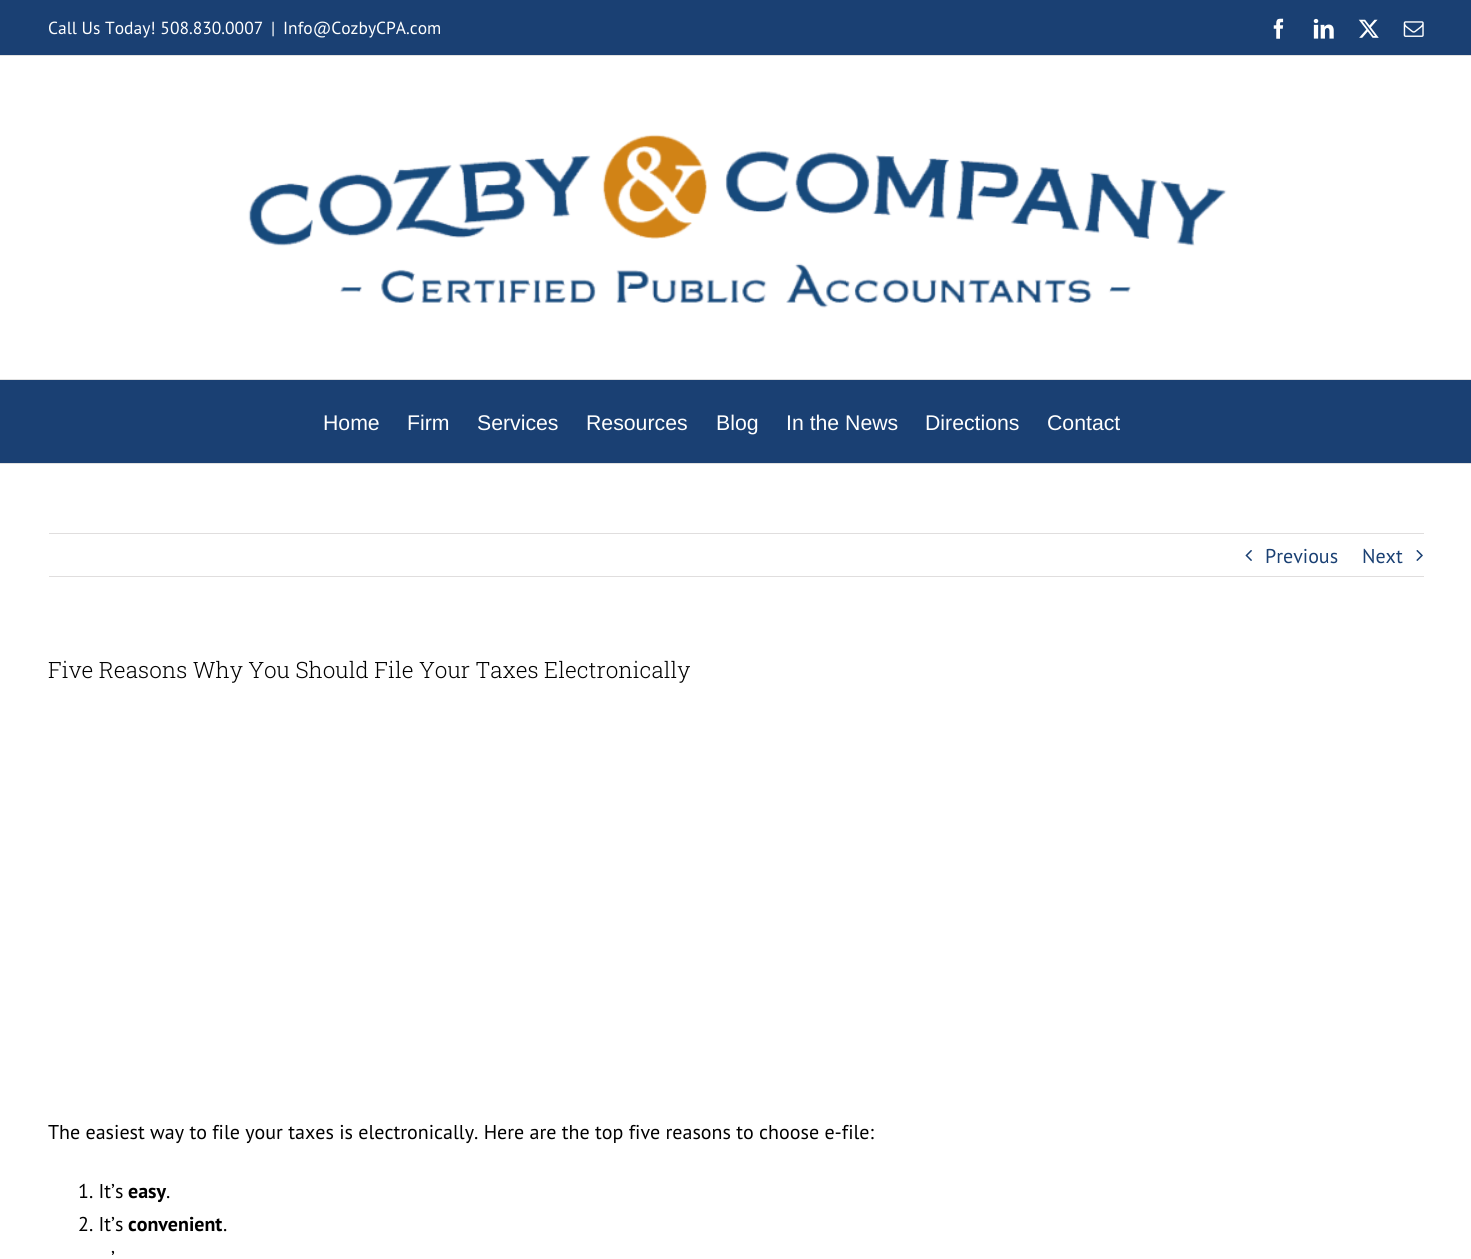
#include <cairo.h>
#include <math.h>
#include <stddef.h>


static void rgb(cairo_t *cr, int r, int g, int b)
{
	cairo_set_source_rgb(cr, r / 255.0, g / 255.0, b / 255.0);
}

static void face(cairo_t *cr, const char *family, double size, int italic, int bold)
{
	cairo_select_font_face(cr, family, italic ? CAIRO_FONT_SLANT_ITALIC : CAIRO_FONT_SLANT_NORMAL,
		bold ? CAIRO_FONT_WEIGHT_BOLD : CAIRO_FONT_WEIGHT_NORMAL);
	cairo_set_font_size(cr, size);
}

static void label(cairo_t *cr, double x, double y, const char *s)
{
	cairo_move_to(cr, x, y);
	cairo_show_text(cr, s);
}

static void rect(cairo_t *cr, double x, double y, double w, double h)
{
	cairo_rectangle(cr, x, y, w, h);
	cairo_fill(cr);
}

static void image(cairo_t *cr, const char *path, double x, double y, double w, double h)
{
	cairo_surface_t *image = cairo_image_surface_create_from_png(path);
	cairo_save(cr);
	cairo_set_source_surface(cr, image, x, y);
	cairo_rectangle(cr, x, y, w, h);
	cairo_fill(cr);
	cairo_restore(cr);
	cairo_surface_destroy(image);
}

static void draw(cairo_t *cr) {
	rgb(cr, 255, 255, 255);
	cairo_paint(cr);
	rgb(cr, 26, 64, 115);
	rect(cr, 0, 0, 1471, 55);
	rgb(cr, 225, 225, 225);
	rect(cr, 0, 55, 1471, 1);
	face(cr, "PT Sans", 17.5, 0, 0);
	rgb(cr, 255, 255, 255);
	label(cr, 48, 34, "Call Us Today! 508.830.0007");
	label(cr, 271, 34, "|");
	label(cr, 283, 34, "Info@CozbyCPA.com");
	image(cr, "image0.png", 1273, 18, 11, 21);
	image(cr, "image1.png", 1313, 18, 21, 21);
	image(cr, "image2.png", 1358, 19, 21, 19);
	image(cr, "image3.png", 1403, 21, 21, 16);
	rgb(cr, 225, 225, 225);
	rect(cr, 0, 379, 1471, 1);
	image(cr, "image4.png", 248, 134, 979, 174);
	rgb(cr, 26, 64, 115);
	rect(cr, 0, 380, 1471, 83);
	rgb(cr, 225, 225, 225);
	rect(cr, 0, 463, 1471, 1);
	face(cr, "Liberation Sans", 21.25, 0, 0);
	rgb(cr, 255, 255, 255);
	label(cr, 323, 430, "Home");
	label(cr, 407, 430, "Firm");
	label(cr, 477, 430, "Services");
	label(cr, 586, 430, "Resources");
	label(cr, 716, 430, "Blog");
	label(cr, 786, 430, "In the News");
	label(cr, 925, 430, "Directions");
	label(cr, 1047, 430, "Contact");
	rgb(cr, 224, 222, 222);
	rect(cr, 49, 533, 1375, 1);
	rect(cr, 49, 576, 1375, 1);
	image(cr, "image5.png", 1245, 550, 7, 11);
	face(cr, "PT Sans", 20, 0, 0);
	rgb(cr, 26, 64, 115);
	label(cr, 1265, 563, "Previous");
	label(cr, 1362, 563, "Next");
	image(cr, "image6.png", 1416, 550, 7, 11);
	face(cr, "Roboto Slab Light", 22.5, 0, 0);
	rgb(cr, 0, 0, 0);
	label(cr, 48, 678, "Five Reasons Why You Should File Your Taxes Electronically");
	face(cr, "PT Sans", 20, 0, 0);
	label(cr, 48, 1139, "The easiest way to file your taxes is electronically. Here are the top five reasons to choose e-file:");
	label(cr, 78, 1198, "1. It’s");
	face(cr, "PT Sans", 20, 0, 1);
	label(cr, 128, 1198, "easy");
	face(cr, "PT Sans", 20, 0, 0);
	label(cr, 166, 1198, ".");
	label(cr, 78, 1231, "2. It’s");
	face(cr, "PT Sans", 20, 0, 1);
	label(cr, 128, 1231, "convenient");
	face(cr, "PT Sans", 20, 0, 0);
	label(cr, 223, 1231, ".");
	label(cr, 111, 1265, "’");
}

int main(void) {
	cairo_surface_t *surface = cairo_image_surface_create(CAIRO_FORMAT_RGB24, 1471, 1259);
	cairo_t *cr = cairo_create(surface);
	cairo_font_options_t *options = cairo_font_options_create();
	cairo_font_options_set_hint_metrics(options, CAIRO_HINT_METRICS_OFF);
	cairo_font_options_set_hint_style(options, CAIRO_HINT_STYLE_NONE);
	cairo_set_font_options(cr, options);
	cairo_set_miter_limit(cr, 4);
	draw(cr);
	cairo_surface_write_to_png(surface, "render.png");
	cairo_font_options_destroy(options);
	cairo_destroy(cr);
	cairo_surface_destroy(surface);
	return 0;
}
